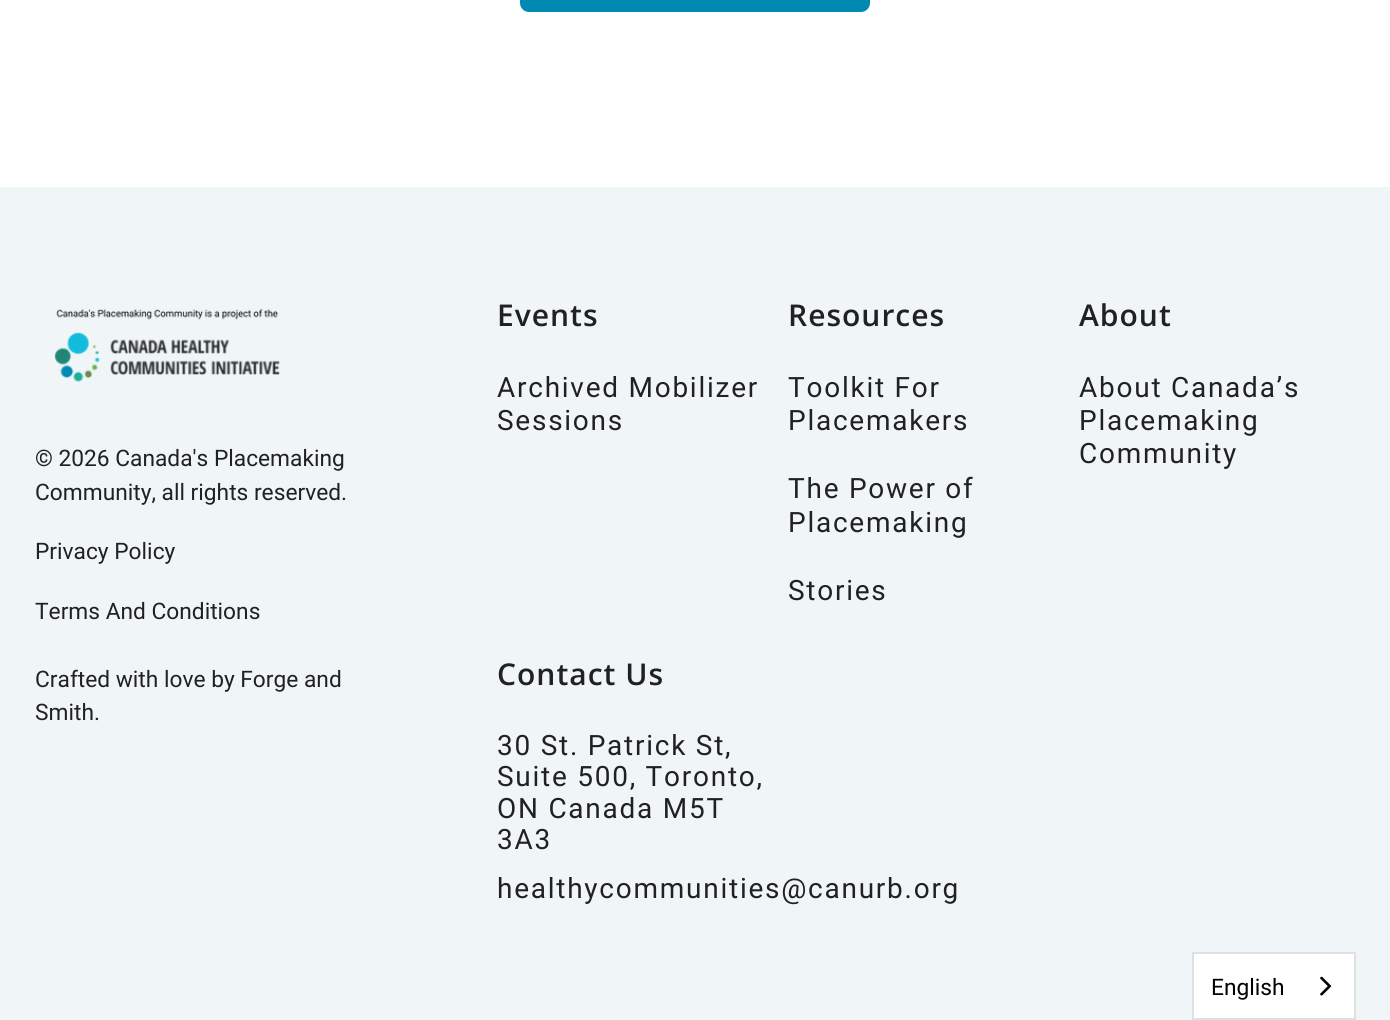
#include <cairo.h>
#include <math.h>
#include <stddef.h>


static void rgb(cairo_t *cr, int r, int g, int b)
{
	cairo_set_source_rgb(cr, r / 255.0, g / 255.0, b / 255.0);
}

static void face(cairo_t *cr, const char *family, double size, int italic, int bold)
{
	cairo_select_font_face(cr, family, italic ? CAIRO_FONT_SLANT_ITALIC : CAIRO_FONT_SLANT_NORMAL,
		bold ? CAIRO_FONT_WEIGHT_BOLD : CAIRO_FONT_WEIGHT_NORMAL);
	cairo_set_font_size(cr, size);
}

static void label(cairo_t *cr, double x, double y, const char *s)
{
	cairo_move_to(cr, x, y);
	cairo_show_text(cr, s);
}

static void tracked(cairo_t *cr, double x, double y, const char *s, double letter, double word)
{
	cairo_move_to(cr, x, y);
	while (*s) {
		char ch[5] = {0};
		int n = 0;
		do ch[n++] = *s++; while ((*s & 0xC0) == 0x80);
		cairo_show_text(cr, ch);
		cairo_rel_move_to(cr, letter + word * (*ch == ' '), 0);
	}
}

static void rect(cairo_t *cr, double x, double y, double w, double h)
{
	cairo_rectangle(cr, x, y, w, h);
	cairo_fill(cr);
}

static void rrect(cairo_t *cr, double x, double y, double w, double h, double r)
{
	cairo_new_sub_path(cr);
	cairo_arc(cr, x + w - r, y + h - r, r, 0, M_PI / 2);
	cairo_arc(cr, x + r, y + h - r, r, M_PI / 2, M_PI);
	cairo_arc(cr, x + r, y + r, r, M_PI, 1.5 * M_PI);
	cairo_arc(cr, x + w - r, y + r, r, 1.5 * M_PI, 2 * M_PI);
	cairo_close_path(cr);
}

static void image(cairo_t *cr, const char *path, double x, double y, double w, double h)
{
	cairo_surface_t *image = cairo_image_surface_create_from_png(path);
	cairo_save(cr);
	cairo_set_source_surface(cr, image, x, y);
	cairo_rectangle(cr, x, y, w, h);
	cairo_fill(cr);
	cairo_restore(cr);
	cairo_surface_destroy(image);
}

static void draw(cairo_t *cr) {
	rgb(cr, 255, 255, 255);
	cairo_paint(cr);
	rgb(cr, 0, 138, 179);
	rrect(cr, 521, -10, 348, 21, 8);
	cairo_fill_preserve(cr);
	cairo_stroke(cr);
	rgb(cr, 240, 246, 247);
	rect(cr, 0, 187, 1390, 833);
	image(cr, "image0.png", 54, 308, 226, 74);
	face(cr, "Roboto", 22.75, 0, 0);
	rgb(cr, 33, 33, 33);
	label(cr, 35, 466, "© 2026 Canada's Placemaking");
	label(cr, 35, 500, "Community, all rights reserved.");
	label(cr, 35, 559, "Privacy Policy");
	label(cr, 35, 619, "Terms And Conditions");
	label(cr, 35, 687, "Crafted with love by Forge and");
	label(cr, 35, 720, "Smith.");
	face(cr, "Open Sans SemiBold", 30, 0, 0);
	tracked(cr, 497, 326, "Events", 1, 0);
	face(cr, "Roboto", 28, 0, 0);
	tracked(cr, 497, 397, "Archived Mobilizer", 1.75, 0);
	tracked(cr, 497, 430, "Sessions", 1.75, 0);
	face(cr, "Open Sans SemiBold", 30, 0, 0);
	tracked(cr, 788, 326, "Resources", 1, 0);
	face(cr, "Roboto", 28, 0, 0);
	tracked(cr, 788, 397, "Toolkit For", 1.75, 0);
	tracked(cr, 788, 430, "Placemakers", 1.75, 0);
	tracked(cr, 788, 498, "The Power of", 1.75, 0);
	tracked(cr, 788, 532, "Placemaking", 1.75, 0);
	tracked(cr, 788, 600, "Stories", 1.75, 0);
	face(cr, "Open Sans SemiBold", 30, 0, 0);
	tracked(cr, 1079, 326, "About", 1, 0);
	face(cr, "Roboto", 28, 0, 0);
	tracked(cr, 1079, 397, "About Canada’s", 1.75, 0);
	tracked(cr, 1079, 430, "Placemaking", 1.75, 0);
	tracked(cr, 1079, 463, "Community", 1.75, 0);
	face(cr, "Open Sans SemiBold", 30, 0, 0);
	tracked(cr, 497, 685, "Contact Us", 1, 0);
	face(cr, "Roboto", 28, 0, 0);
	tracked(cr, 497, 755, "30 St. Patrick St,", 1.75, 0);
	tracked(cr, 497, 786, "Suite 500, Toronto,", 1.75, 0);
	tracked(cr, 497, 818, "ON Canada M5T", 1.75, 0);
	tracked(cr, 497, 849, "3A3", 1.75, 0);
	tracked(cr, 497, 898, "healthycommunities@canurb.org", 1.75, 0);
	rgb(cr, 255, 255, 255);
	cairo_rectangle(cr, 1193, 953, 162, 66);
	cairo_fill_preserve(cr);
	rgb(cr, 224, 224, 224);
	cairo_stroke(cr);
	face(cr, "Roboto", 22.75, 0, 0);
	rgb(cr, 0, 0, 0);
	label(cr, 1211, 995, "English");
	image(cr, "image1.png", 1320, 976, 12, 20);
}

int main(void) {
	cairo_surface_t *surface = cairo_image_surface_create(CAIRO_FORMAT_RGB24, 1390, 1020);
	cairo_t *cr = cairo_create(surface);
	cairo_font_options_t *options = cairo_font_options_create();
	cairo_font_options_set_hint_metrics(options, CAIRO_HINT_METRICS_OFF);
	cairo_font_options_set_hint_style(options, CAIRO_HINT_STYLE_NONE);
	cairo_set_font_options(cr, options);
	cairo_set_miter_limit(cr, 4);
	draw(cr);
	cairo_surface_write_to_png(surface, "render.png");
	cairo_font_options_destroy(options);
	cairo_destroy(cr);
	cairo_surface_destroy(surface);
	return 0;
}
